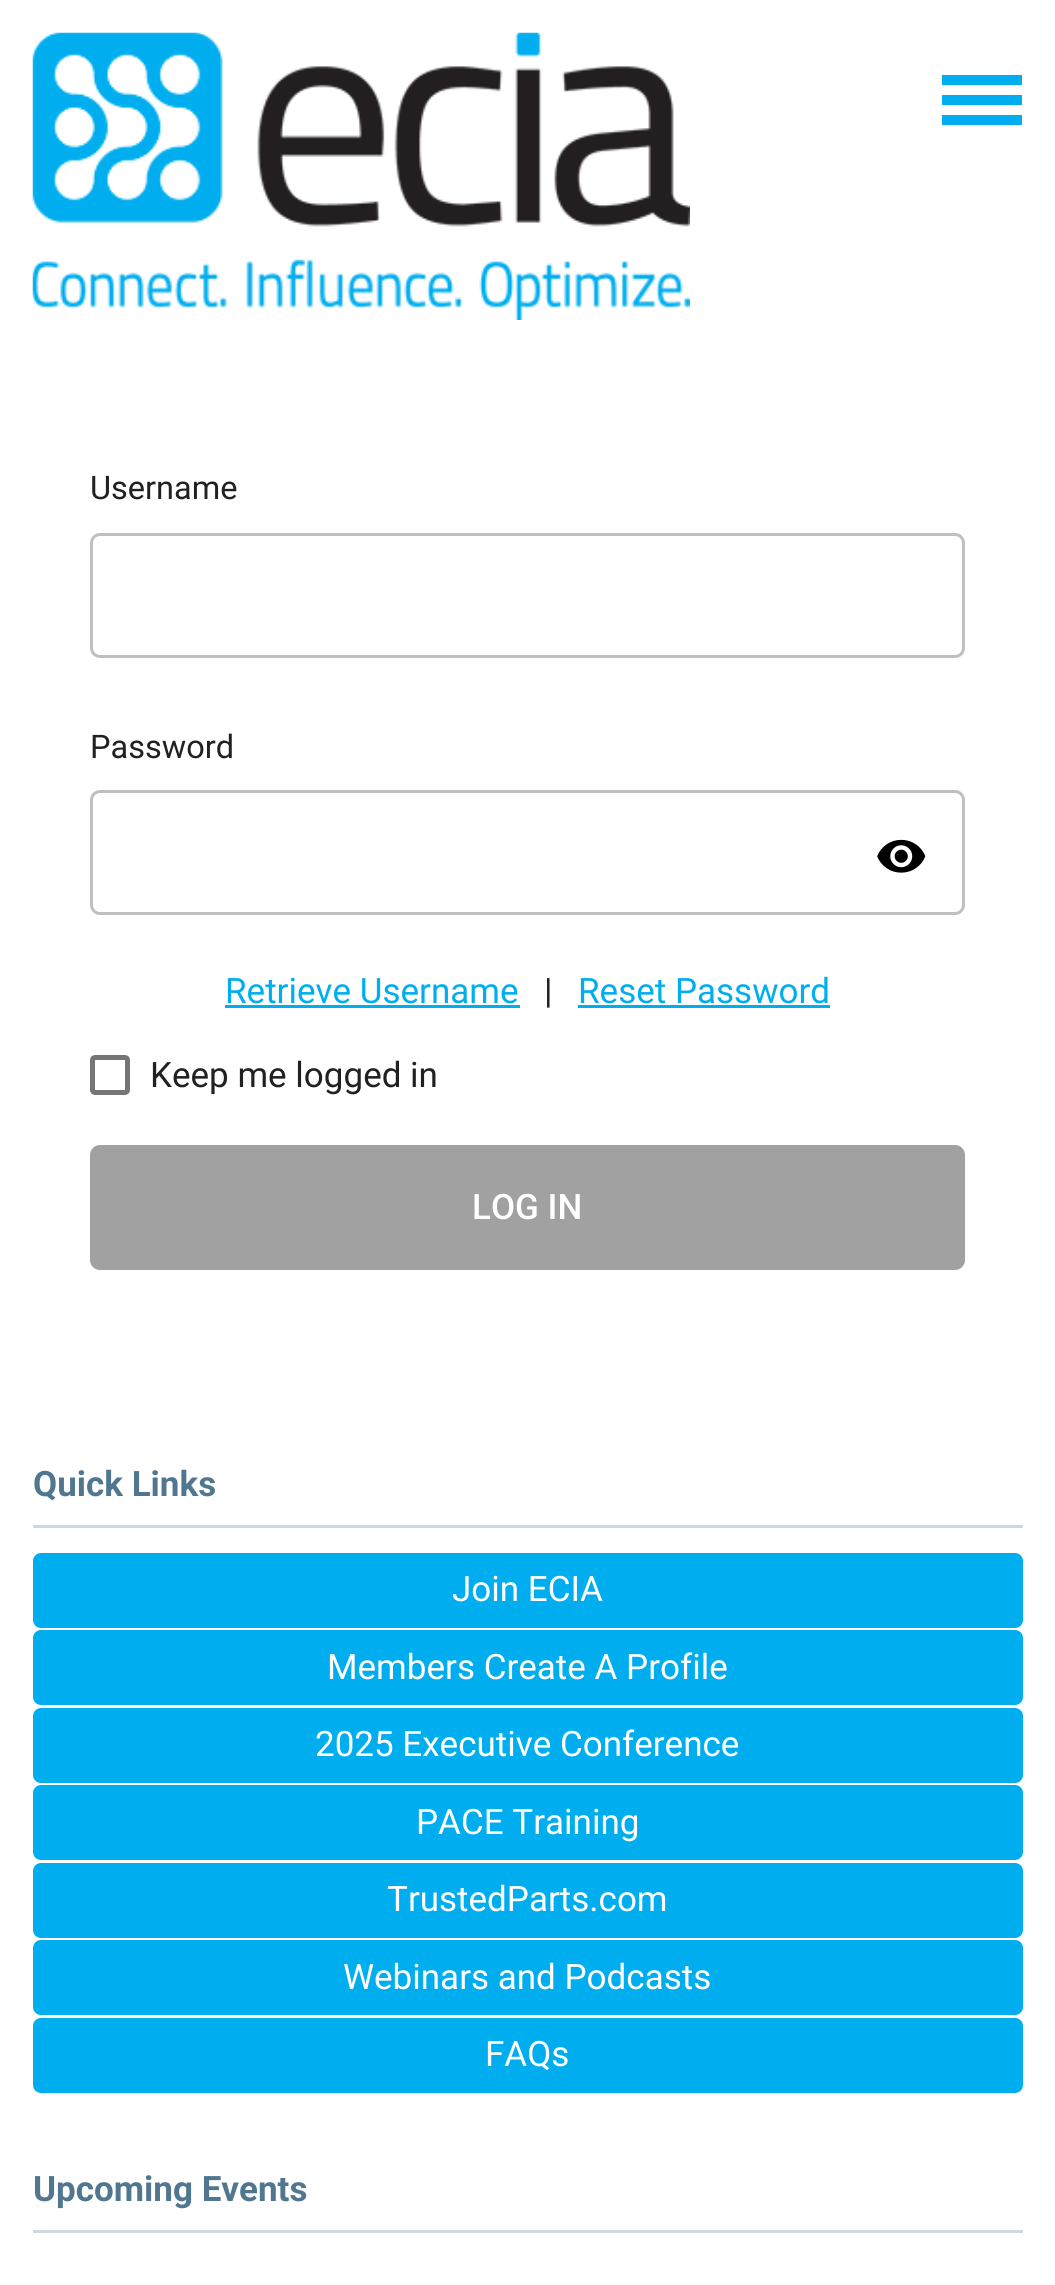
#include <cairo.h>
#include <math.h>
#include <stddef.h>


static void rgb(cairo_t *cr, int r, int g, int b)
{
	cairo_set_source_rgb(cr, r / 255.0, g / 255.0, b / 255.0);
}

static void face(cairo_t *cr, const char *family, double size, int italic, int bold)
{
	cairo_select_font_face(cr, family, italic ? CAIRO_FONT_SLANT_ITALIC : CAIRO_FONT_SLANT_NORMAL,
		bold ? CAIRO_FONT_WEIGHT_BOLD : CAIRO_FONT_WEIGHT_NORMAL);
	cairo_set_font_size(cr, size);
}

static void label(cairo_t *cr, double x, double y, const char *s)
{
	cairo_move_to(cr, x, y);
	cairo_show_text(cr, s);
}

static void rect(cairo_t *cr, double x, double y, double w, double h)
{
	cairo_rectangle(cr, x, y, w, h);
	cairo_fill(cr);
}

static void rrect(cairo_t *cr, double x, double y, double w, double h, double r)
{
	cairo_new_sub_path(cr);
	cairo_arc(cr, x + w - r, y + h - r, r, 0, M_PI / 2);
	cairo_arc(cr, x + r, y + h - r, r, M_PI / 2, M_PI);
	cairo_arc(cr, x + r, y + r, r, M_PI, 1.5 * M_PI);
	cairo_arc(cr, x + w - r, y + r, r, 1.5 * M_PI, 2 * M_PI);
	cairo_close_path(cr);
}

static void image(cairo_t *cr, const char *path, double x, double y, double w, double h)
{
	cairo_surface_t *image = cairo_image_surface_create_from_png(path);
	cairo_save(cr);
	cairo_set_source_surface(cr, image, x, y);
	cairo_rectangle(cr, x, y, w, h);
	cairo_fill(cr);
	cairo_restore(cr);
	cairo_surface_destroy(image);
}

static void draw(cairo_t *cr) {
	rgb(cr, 255, 255, 255);
	cairo_paint(cr);
	image(cr, "image0.png", 32, 32, 658, 288);
	rgb(cr, 0, 174, 239);
	cairo_new_path(cr);
	cairo_move_to(cr, 942, 75);
	cairo_line_to(cr, 1022, 75);
	cairo_line_to(cr, 1022, 85);
	cairo_line_to(cr, 942, 85);
	cairo_close_path(cr);
	cairo_move_to(cr, 942, 95);
	cairo_line_to(cr, 1022, 95);
	cairo_line_to(cr, 1022, 105);
	cairo_line_to(cr, 942, 105);
	cairo_close_path(cr);
	cairo_move_to(cr, 942, 115);
	cairo_line_to(cr, 1022, 115);
	cairo_line_to(cr, 1022, 125);
	cairo_line_to(cr, 942, 125);
	cairo_close_path(cr);
	cairo_fill(cr);
	face(cr, "Roboto", 32.5, 0, 0);
	rgb(cr, 33, 33, 33);
	label(cr, 90, 499, "Username");
	rrect(cr, 91.5, 534.5, 872, 122, 8.5);
	rgb(cr, 191, 191, 191);
	cairo_set_line_width(cr, 3);
	cairo_stroke(cr);
	rgb(cr, 33, 33, 33);
	label(cr, 90, 758, "Password");
	rrect(cr, 91.5, 791.5, 872, 122, 8.5);
	rgb(cr, 191, 191, 191);
	cairo_stroke(cr);
	image(cr, "image1.png", 877, 839, 49, 34);
	face(cr, "Roboto", 35, 0, 0);
	rgb(cr, 0, 174, 239);
	label(cr, 225, 1003, "Retrieve Username");
	rect(cr, 225, 1005, 295, 3);
	rgb(cr, 33, 33, 33);
	label(cr, 544, 1003, "|");
	rgb(cr, 0, 174, 239);
	label(cr, 578, 1003, "Reset Password");
	rect(cr, 578, 1005, 252, 3);
	rrect(cr, 92.5, 1057.5, 35, 35, 2.5);
	rgb(cr, 117, 117, 117);
	cairo_set_line_width(cr, 5);
	cairo_stroke(cr);
	rgb(cr, 33, 33, 33);
	label(cr, 150, 1087, "Keep me logged in");
	rgb(cr, 161, 161, 161);
	rrect(cr, 90, 1145, 875, 125, 10);
	cairo_fill(cr);
	face(cr, "Roboto Medium", 35, 0, 0);
	rgb(cr, 255, 255, 255);
	label(cr, 472, 1219, "LOG IN");
	rgb(cr, 206, 218, 225);
	rect(cr, 33, 1525, 990, 3);
	face(cr, "Roboto", 35, 0, 1);
	rgb(cr, 80, 119, 143);
	label(cr, 33, 1496, "Quick Links");
	rgb(cr, 0, 174, 239);
	rrect(cr, 33, 1553, 990, 75, 8);
	cairo_fill(cr);
	face(cr, "Roboto", 35, 0, 0);
	rgb(cr, 255, 255, 255);
	label(cr, 452, 1601, "Join ECIA");
	rgb(cr, 0, 174, 239);
	rrect(cr, 33, 1630, 990, 75, 8);
	cairo_fill(cr);
	rgb(cr, 255, 255, 255);
	label(cr, 327, 1679, "Members Create A Profile");
	rgb(cr, 0, 174, 239);
	rrect(cr, 33, 1708, 990, 75, 8);
	cairo_fill(cr);
	rgb(cr, 255, 255, 255);
	label(cr, 315, 1756, "2025 Executive Conference");
	rgb(cr, 0, 174, 239);
	rrect(cr, 33, 1785, 990, 75, 8);
	cairo_fill(cr);
	rgb(cr, 255, 255, 255);
	label(cr, 416, 1834, "PACE Training");
	rgb(cr, 0, 174, 239);
	rrect(cr, 33, 1863, 990, 75, 8);
	cairo_fill(cr);
	rgb(cr, 255, 255, 255);
	label(cr, 387, 1911, "TrustedParts.com");
	rgb(cr, 0, 174, 239);
	rrect(cr, 33, 1940, 990, 75, 8);
	cairo_fill(cr);
	rgb(cr, 255, 255, 255);
	label(cr, 343, 1989, "Webinars and Podcasts");
	rgb(cr, 0, 174, 239);
	rrect(cr, 33, 2018, 990, 75, 8);
	cairo_fill(cr);
	rgb(cr, 255, 255, 255);
	label(cr, 485, 2066, "FAQs");
	rgb(cr, 206, 218, 225);
	rect(cr, 33, 2230, 990, 3);
	face(cr, "Roboto", 35, 0, 1);
	rgb(cr, 80, 119, 143);
	label(cr, 33, 2201, "Upcoming Events");
}

int main(void) {
	cairo_surface_t *surface = cairo_image_surface_create(CAIRO_FORMAT_RGB24, 1055, 2285);
	cairo_t *cr = cairo_create(surface);
	cairo_font_options_t *options = cairo_font_options_create();
	cairo_font_options_set_hint_metrics(options, CAIRO_HINT_METRICS_OFF);
	cairo_font_options_set_hint_style(options, CAIRO_HINT_STYLE_NONE);
	cairo_set_font_options(cr, options);
	cairo_set_miter_limit(cr, 4);
	draw(cr);
	cairo_surface_write_to_png(surface, "render.png");
	cairo_font_options_destroy(options);
	cairo_destroy(cr);
	cairo_surface_destroy(surface);
	return 0;
}
